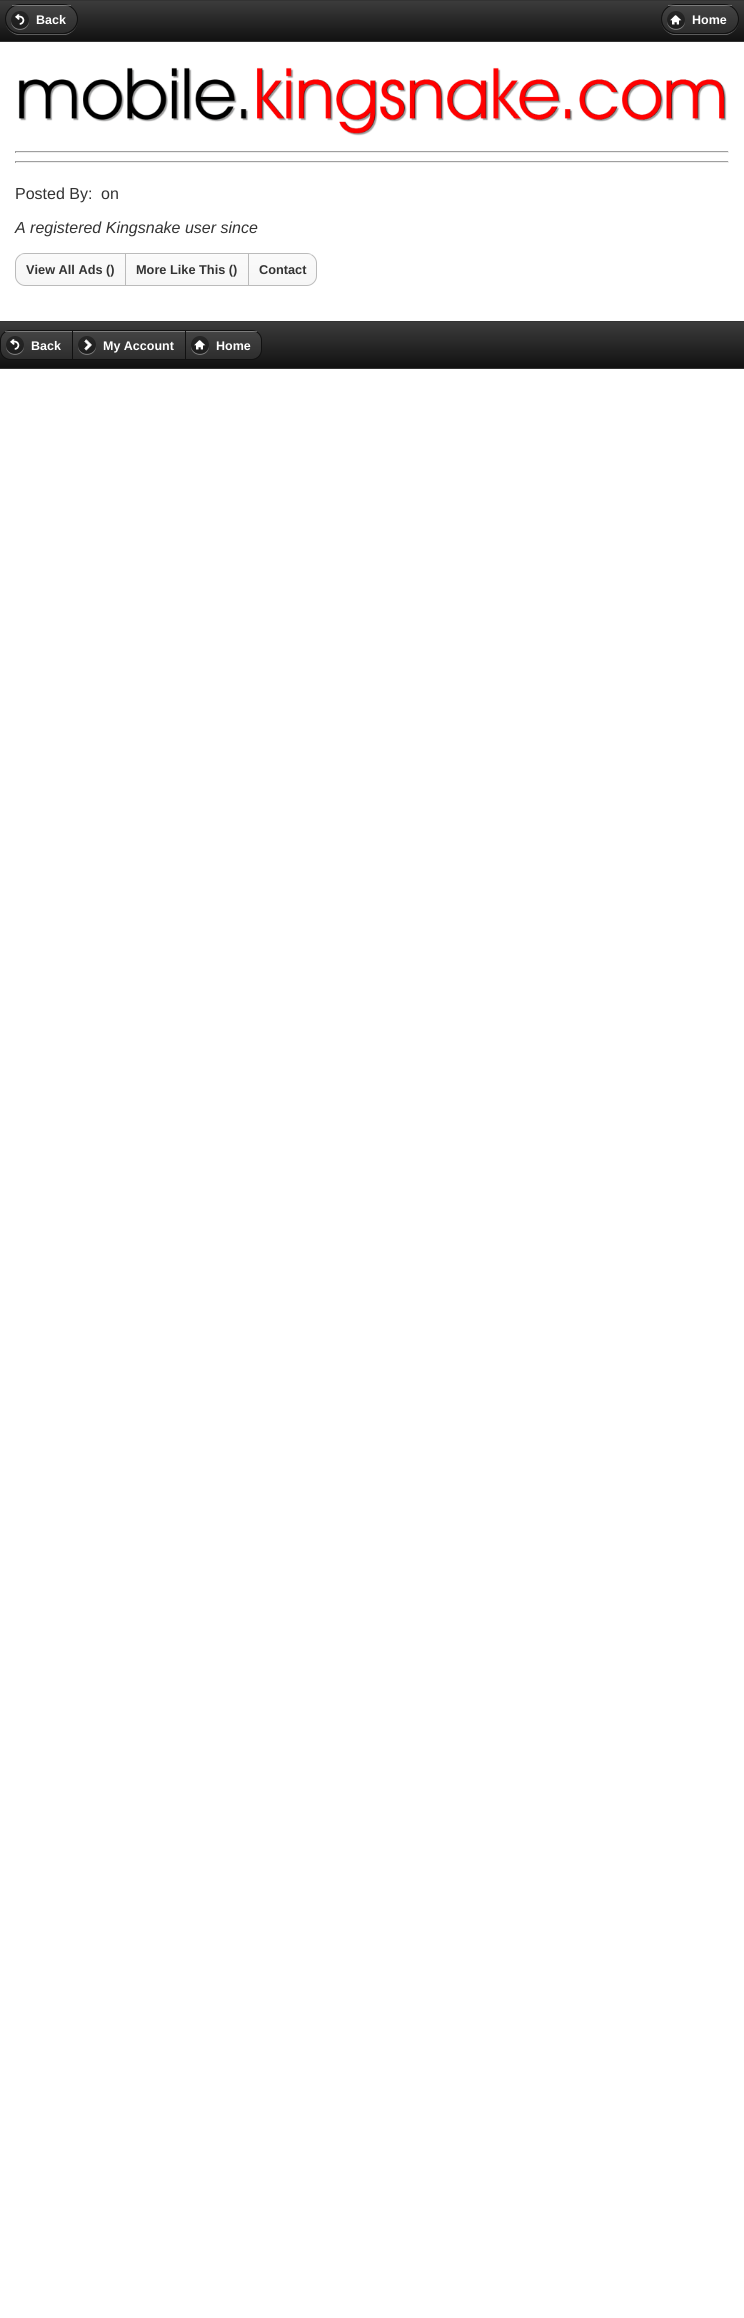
#include <cairo.h>
#include <math.h>
#include <stddef.h>


static void rgb(cairo_t *cr, int r, int g, int b)
{
	cairo_set_source_rgb(cr, r / 255.0, g / 255.0, b / 255.0);
}

static void face(cairo_t *cr, const char *family, double size, int italic, int bold)
{
	cairo_select_font_face(cr, family, italic ? CAIRO_FONT_SLANT_ITALIC : CAIRO_FONT_SLANT_NORMAL,
		bold ? CAIRO_FONT_WEIGHT_BOLD : CAIRO_FONT_WEIGHT_NORMAL);
	cairo_set_font_size(cr, size);
}

static void label(cairo_t *cr, double x, double y, const char *s)
{
	cairo_move_to(cr, x, y);
	cairo_show_text(cr, s);
}

static void rect(cairo_t *cr, double x, double y, double w, double h)
{
	cairo_rectangle(cr, x, y, w, h);
	cairo_fill(cr);
}

static void rrect(cairo_t *cr, double x, double y, double w, double h, double r)
{
	cairo_new_sub_path(cr);
	cairo_arc(cr, x + w - r, y + h - r, r, 0, M_PI / 2);
	cairo_arc(cr, x + r, y + h - r, r, M_PI / 2, M_PI);
	cairo_arc(cr, x + r, y + r, r, M_PI, 1.5 * M_PI);
	cairo_arc(cr, x + w - r, y + r, r, 1.5 * M_PI, 2 * M_PI);
	cairo_close_path(cr);
}

static void image(cairo_t *cr, const char *path, double x, double y, double w, double h)
{
	cairo_surface_t *image = cairo_image_surface_create_from_png(path);
	cairo_save(cr);
	cairo_set_source_surface(cr, image, x, y);
	cairo_rectangle(cr, x, y, w, h);
	cairo_fill(cr);
	cairo_restore(cr);
	cairo_surface_destroy(image);
}

static void draw(cairo_t *cr) {
	cairo_pattern_t *gradient;
	rgb(cr, 255, 255, 255);
	cairo_paint(cr);
	gradient = cairo_pattern_create_linear(372, 1, 372, 41);
	cairo_pattern_add_color_stop_rgba(gradient, 0, 0.235, 0.235, 0.235, 1);
	cairo_pattern_add_color_stop_rgba(gradient, 1, 0.067, 0.067, 0.067, 1);
	cairo_set_source(cr, gradient);
	cairo_pattern_destroy(gradient);
	rect(cr, 0, 1, 744, 40);
	rgb(cr, 51, 51, 51);
	rect(cr, 0, 0, 744, 1);
	rect(cr, 0, 41, 744, 1);
	cairo_set_source_rgba(cr, 1, 1, 1, 0.3);
	cairo_new_path(cr);
	cairo_move_to(cr, 5, 20);
	cairo_curve_to(cr, 5, 27, 10, 33, 17, 35);
	cairo_line_to(cr, 66, 35);
	cairo_curve_to(cr, 73, 33, 78, 27, 78, 19);
	cairo_curve_to(cr, 78, 28, 71, 34, 63, 34);
	cairo_line_to(cr, 20, 34);
	cairo_curve_to(cr, 12, 34, 5, 28, 5, 20);
	cairo_close_path(cr);
	cairo_fill(cr);
	gradient = cairo_pattern_create_linear(42, 5, 42, 33);
	cairo_pattern_add_color_stop_rgba(gradient, 0, 0.267, 0.267, 0.267, 1);
	cairo_pattern_add_color_stop_rgba(gradient, 1, 0.176, 0.176, 0.176, 1);
	cairo_set_source(cr, gradient);
	cairo_pattern_destroy(gradient);
	rrect(cr, 6, 5, 71, 28, 14);
	cairo_fill(cr);
	rrect(cr, 5.5, 4.5, 72, 29, 14.5);
	rgb(cr, 17, 17, 17);
	cairo_set_line_width(cr, 1);
	cairo_stroke(cr);
	cairo_set_source_rgba(cr, 1, 1, 1, 0.3);
	rect(cr, 12, 5, 59, 1);
	cairo_set_source_rgba(cr, 1, 1, 1, 0.4);
	cairo_new_path(cr);
	cairo_move_to(cr, 11, 20.5);
	cairo_curve_to(cr, 10.5, 33, 29.5, 33, 29, 20.5);
	cairo_curve_to(cr, 28.5, 31.5, 11.5, 31.5, 11, 20.5);
	cairo_close_path(cr);
	cairo_fill(cr);
	cairo_set_source_rgba(cr, 0, 0, 0, 0.4);
	cairo_arc(cr, 20, 20, 9, 0, 2 * M_PI);
	cairo_fill(cr);
	image(cr, "image0.png", 15, 14, 10, 11);
	face(cr, "Liberation Sans", 12.5, 0, 1);
	rgb(cr, 255, 255, 255);
	label(cr, 36, 24, "Back");
	cairo_set_source_rgba(cr, 1, 1, 1, 0.3);
	cairo_new_path(cr);
	cairo_move_to(cr, 661, 19);
	cairo_curve_to(cr, 661, 27, 666, 33, 673, 35);
	cairo_line_to(cr, 727, 35);
	cairo_curve_to(cr, 734, 33, 739, 27, 739, 19);
	cairo_curve_to(cr, 739, 28, 732, 34, 724, 34);
	cairo_line_to(cr, 676, 34);
	cairo_curve_to(cr, 668, 34, 661, 28, 661, 19);
	cairo_close_path(cr);
	cairo_fill(cr);
	gradient = cairo_pattern_create_linear(700, 5, 700, 33);
	cairo_pattern_add_color_stop_rgba(gradient, 0, 0.267, 0.267, 0.267, 1);
	cairo_pattern_add_color_stop_rgba(gradient, 1, 0.176, 0.176, 0.176, 1);
	cairo_set_source(cr, gradient);
	cairo_pattern_destroy(gradient);
	rrect(cr, 662, 5, 76, 28, 14);
	cairo_fill(cr);
	rrect(cr, 661.5, 4.5, 77, 29, 14.5);
	rgb(cr, 17, 17, 17);
	cairo_stroke(cr);
	cairo_set_source_rgba(cr, 1, 1, 1, 0.3);
	rect(cr, 668, 5, 64, 1);
	cairo_set_source_rgba(cr, 1, 1, 1, 0.4);
	cairo_new_path(cr);
	cairo_move_to(cr, 685, 20.5);
	cairo_curve_to(cr, 684.5, 31.5, 667.5, 31.5, 667, 20.5);
	cairo_curve_to(cr, 666.5, 33, 685.5, 33, 685, 20.5);
	cairo_close_path(cr);
	cairo_fill(cr);
	cairo_set_source_rgba(cr, 0, 0, 0, 0.4);
	cairo_arc(cr, 676, 20, 9, 0, 2 * M_PI);
	cairo_fill(cr);
	image(cr, "image1.png", 670, 15, 12, 10);
	rgb(cr, 255, 255, 255);
	label(cr, 692, 24, "Home");
	image(cr, "image2.png", 18, 67, 709, 69);
	rgb(cr, 159, 159, 159);
	rect(cr, 15, 151, 714, 1);
	rgb(cr, 238, 238, 238);
	rect(cr, 728, 151, 1, 2);
	rect(cr, 15, 152, 714, 1);
	rgb(cr, 159, 159, 159);
	rect(cr, 15, 151, 1, 2);
	rect(cr, 15, 161, 714, 1);
	rgb(cr, 238, 238, 238);
	rect(cr, 728, 161, 1, 2);
	rect(cr, 15, 162, 714, 1);
	rgb(cr, 159, 159, 159);
	rect(cr, 15, 161, 1, 2);
	face(cr, "Liberation Sans", 16, 0, 0);
	rgb(cr, 51, 51, 51);
	label(cr, 15, 199, "Posted By:");
	label(cr, 101, 199, "on");
	face(cr, "Liberation Sans", 16, 1, 0);
	label(cr, 15, 233, "A registered Kingsnake user since");
	gradient = cairo_pattern_create_linear(71, 254, 71, 285);
	cairo_pattern_add_color_stop_rgba(gradient, 0, 0.98, 0.98, 0.98, 1);
	cairo_pattern_add_color_stop_rgba(gradient, 1, 0.965, 0.965, 0.965, 1);
	cairo_set_source(cr, gradient);
	cairo_pattern_destroy(gradient);
	cairo_new_path(cr);
	cairo_move_to(cr, 25, 254);
	cairo_line_to(cr, 125, 254);
	cairo_line_to(cr, 125, 285);
	cairo_line_to(cr, 25, 285);
	cairo_curve_to(cr, 20, 285, 16, 281, 16, 276);
	cairo_line_to(cr, 16, 263);
	cairo_curve_to(cr, 16, 258, 20, 254, 25, 254);
	cairo_close_path(cr);
	cairo_fill(cr);
	cairo_new_path(cr);
	cairo_move_to(cr, 25, 253.5);
	cairo_line_to(cr, 125.5, 253.5);
	cairo_line_to(cr, 125.5, 285.5);
	cairo_line_to(cr, 25, 285.5);
	cairo_curve_to(cr, 20, 285.5, 15.5, 281, 15.5, 276);
	cairo_line_to(cr, 15.5, 263);
	cairo_curve_to(cr, 15.5, 258, 20, 253.5, 25, 253.5);
	cairo_close_path(cr);
	rgb(cr, 187, 187, 187);
	cairo_stroke(cr);
	cairo_set_source_rgba(cr, 1, 1, 1, 0.3);
	rect(cr, 20, 254, 4, 1);
	face(cr, "Liberation Sans", 12.75, 0, 1);
	rgb(cr, 51, 51, 51);
	label(cr, 26, 274, "View All Ads ()");
	gradient = cairo_pattern_create_linear(187, 254, 187, 285);
	cairo_pattern_add_color_stop_rgba(gradient, 0, 0.98, 0.98, 0.98, 1);
	cairo_pattern_add_color_stop_rgba(gradient, 1, 0.965, 0.965, 0.965, 1);
	cairo_set_source(cr, gradient);
	cairo_pattern_destroy(gradient);
	rect(cr, 126, 255, 122, 30);
	cairo_rectangle(cr, 125.5, 253.5, 123, 32);
	rgb(cr, 187, 187, 187);
	cairo_stroke(cr);
	rgb(cr, 252, 252, 252);
	rect(cr, 126, 254, 122, 1);
	rgb(cr, 51, 51, 51);
	label(cr, 136, 274, "More Like This ()");
	gradient = cairo_pattern_create_linear(283, 254, 283, 285);
	cairo_pattern_add_color_stop_rgba(gradient, 0, 0.98, 0.98, 0.98, 1);
	cairo_pattern_add_color_stop_rgba(gradient, 1, 0.965, 0.965, 0.965, 1);
	cairo_set_source(cr, gradient);
	cairo_pattern_destroy(gradient);
	cairo_new_path(cr);
	cairo_move_to(cr, 249, 254);
	cairo_line_to(cr, 307, 254);
	cairo_curve_to(cr, 312, 254, 316, 258, 316, 263);
	cairo_line_to(cr, 316, 276);
	cairo_curve_to(cr, 316, 281, 312, 285, 307, 285);
	cairo_line_to(cr, 249, 285);
	cairo_close_path(cr);
	cairo_fill(cr);
	cairo_new_path(cr);
	cairo_move_to(cr, 248.5, 253.5);
	cairo_line_to(cr, 307, 253.5);
	cairo_curve_to(cr, 312, 253.5, 316.5, 258, 316.5, 263);
	cairo_line_to(cr, 316.5, 276);
	cairo_curve_to(cr, 316.5, 281, 312, 285.5, 307, 285.5);
	cairo_line_to(cr, 248.5, 285.5);
	cairo_close_path(cr);
	rgb(cr, 187, 187, 187);
	cairo_stroke(cr);
	cairo_set_source_rgba(cr, 1, 1, 1, 0.3);
	rect(cr, 308, 254, 4, 1);
	rgb(cr, 51, 51, 51);
	label(cr, 259, 274, "Contact");
	gradient = cairo_pattern_create_linear(372, 322, 372, 368);
	cairo_pattern_add_color_stop_rgba(gradient, 0, 0.235, 0.235, 0.235, 1);
	cairo_pattern_add_color_stop_rgba(gradient, 1, 0.067, 0.067, 0.067, 1);
	cairo_set_source(cr, gradient);
	cairo_pattern_destroy(gradient);
	rect(cr, 0, 322, 744, 46);
	rgb(cr, 51, 51, 51);
	rect(cr, 0, 321, 744, 1);
	rect(cr, 0, 368, 744, 1);
	gradient = cairo_pattern_create_linear(37, 331, 37, 359);
	cairo_pattern_add_color_stop_rgba(gradient, 0, 0.267, 0.267, 0.267, 1);
	cairo_pattern_add_color_stop_rgba(gradient, 1, 0.176, 0.176, 0.176, 1);
	cairo_set_source(cr, gradient);
	cairo_pattern_destroy(gradient);
	cairo_new_path(cr);
	cairo_move_to(cr, 10, 331);
	cairo_line_to(cr, 72, 331);
	cairo_line_to(cr, 72, 359);
	cairo_line_to(cr, 10, 359);
	cairo_curve_to(cr, 5, 359, 1, 355, 1, 350);
	cairo_line_to(cr, 1, 340);
	cairo_curve_to(cr, 1, 335, 5, 331, 10, 331);
	cairo_close_path(cr);
	cairo_fill(cr);
	cairo_new_path(cr);
	cairo_move_to(cr, 10, 330.5);
	cairo_line_to(cr, 72.5, 330.5);
	cairo_line_to(cr, 72.5, 359.5);
	cairo_line_to(cr, 10, 359.5);
	cairo_curve_to(cr, 5, 359.5, 0.5, 355, 0.5, 350);
	cairo_line_to(cr, 0.5, 340);
	cairo_curve_to(cr, 0.5, 335, 5, 330.5, 10, 330.5);
	cairo_close_path(cr);
	rgb(cr, 17, 17, 17);
	cairo_stroke(cr);
	cairo_set_source_rgba(cr, 1, 1, 1, 0.3);
	rect(cr, 5, 331, 67, 1);
	cairo_set_source_rgba(cr, 1, 1, 1, 0.4);
	cairo_new_path(cr);
	cairo_move_to(cr, 24, 345.5);
	cairo_curve_to(cr, 23.5, 356.5, 6.5, 356.5, 6, 345.5);
	cairo_curve_to(cr, 5.5, 358, 24.5, 358, 24, 345.5);
	cairo_close_path(cr);
	cairo_fill(cr);
	cairo_set_source_rgba(cr, 0, 0, 0, 0.4);
	cairo_arc(cr, 15, 345, 9, 0, 2 * M_PI);
	cairo_fill(cr);
	image(cr, "image3.png", 10, 339, 10, 11);
	face(cr, "Liberation Sans", 12.5, 0, 1);
	rgb(cr, 255, 255, 255);
	label(cr, 31, 350, "Back");
	gradient = cairo_pattern_create_linear(129, 331, 129, 359);
	cairo_pattern_add_color_stop_rgba(gradient, 0, 0.267, 0.267, 0.267, 1);
	cairo_pattern_add_color_stop_rgba(gradient, 1, 0.176, 0.176, 0.176, 1);
	cairo_set_source(cr, gradient);
	cairo_pattern_destroy(gradient);
	rect(cr, 73, 332, 112, 27);
	cairo_rectangle(cr, 72.5, 330.5, 113, 29);
	rgb(cr, 17, 17, 17);
	cairo_stroke(cr);
	rgb(cr, 124, 124, 124);
	rect(cr, 73, 331, 112, 1);
	cairo_set_source_rgba(cr, 1, 1, 1, 0.4);
	cairo_new_path(cr);
	cairo_move_to(cr, 96, 345.5);
	cairo_curve_to(cr, 95.5, 356.5, 78.5, 356.5, 78, 345.5);
	cairo_curve_to(cr, 77.5, 358, 96.5, 358, 96, 345.5);
	cairo_close_path(cr);
	cairo_fill(cr);
	cairo_set_source_rgba(cr, 0, 0, 0, 0.4);
	cairo_arc(cr, 87, 345, 9, 0, 2 * M_PI);
	cairo_fill(cr);
	image(cr, "image4.png", 84, 339, 8, 12);
	rgb(cr, 255, 255, 255);
	label(cr, 103, 350, "My Account");
	gradient = cairo_pattern_create_linear(224, 331, 224, 359);
	cairo_pattern_add_color_stop_rgba(gradient, 0, 0.267, 0.267, 0.267, 1);
	cairo_pattern_add_color_stop_rgba(gradient, 1, 0.176, 0.176, 0.176, 1);
	cairo_set_source(cr, gradient);
	cairo_pattern_destroy(gradient);
	cairo_new_path(cr);
	cairo_move_to(cr, 186, 331);
	cairo_line_to(cr, 252, 331);
	cairo_curve_to(cr, 257, 331, 261, 335, 261, 340);
	cairo_line_to(cr, 261, 350);
	cairo_curve_to(cr, 261, 355, 257, 359, 252, 359);
	cairo_line_to(cr, 186, 359);
	cairo_close_path(cr);
	cairo_fill(cr);
	cairo_new_path(cr);
	cairo_move_to(cr, 185.5, 330.5);
	cairo_line_to(cr, 252, 330.5);
	cairo_curve_to(cr, 257, 330.5, 261.5, 335, 261.5, 340);
	cairo_line_to(cr, 261.5, 350);
	cairo_curve_to(cr, 261.5, 355, 257, 359.5, 252, 359.5);
	cairo_line_to(cr, 185.5, 359.5);
	cairo_close_path(cr);
	rgb(cr, 17, 17, 17);
	cairo_stroke(cr);
	cairo_set_source_rgba(cr, 1, 1, 1, 0.3);
	rect(cr, 186, 331, 71, 1);
	cairo_set_source_rgba(cr, 1, 1, 1, 0.4);
	cairo_new_path(cr);
	cairo_move_to(cr, 209, 345.5);
	cairo_curve_to(cr, 208.5, 356.5, 191.5, 356.5, 191, 345.5);
	cairo_curve_to(cr, 190.5, 358, 209.5, 358, 209, 345.5);
	cairo_close_path(cr);
	cairo_fill(cr);
	cairo_set_source_rgba(cr, 0, 0, 0, 0.4);
	cairo_arc(cr, 200, 345, 9, 0, 2 * M_PI);
	cairo_fill(cr);
	image(cr, "image5.png", 194, 340, 12, 10);
	rgb(cr, 255, 255, 255);
	label(cr, 216, 350, "Home");
}

int main(void) {
	cairo_surface_t *surface = cairo_image_surface_create(CAIRO_FORMAT_RGB24, 744, 2318);
	cairo_t *cr = cairo_create(surface);
	cairo_font_options_t *options = cairo_font_options_create();
	cairo_font_options_set_hint_metrics(options, CAIRO_HINT_METRICS_OFF);
	cairo_font_options_set_hint_style(options, CAIRO_HINT_STYLE_NONE);
	cairo_set_font_options(cr, options);
	cairo_set_miter_limit(cr, 4);
	draw(cr);
	cairo_surface_write_to_png(surface, "render.png");
	cairo_font_options_destroy(options);
	cairo_destroy(cr);
	cairo_surface_destroy(surface);
	return 0;
}
